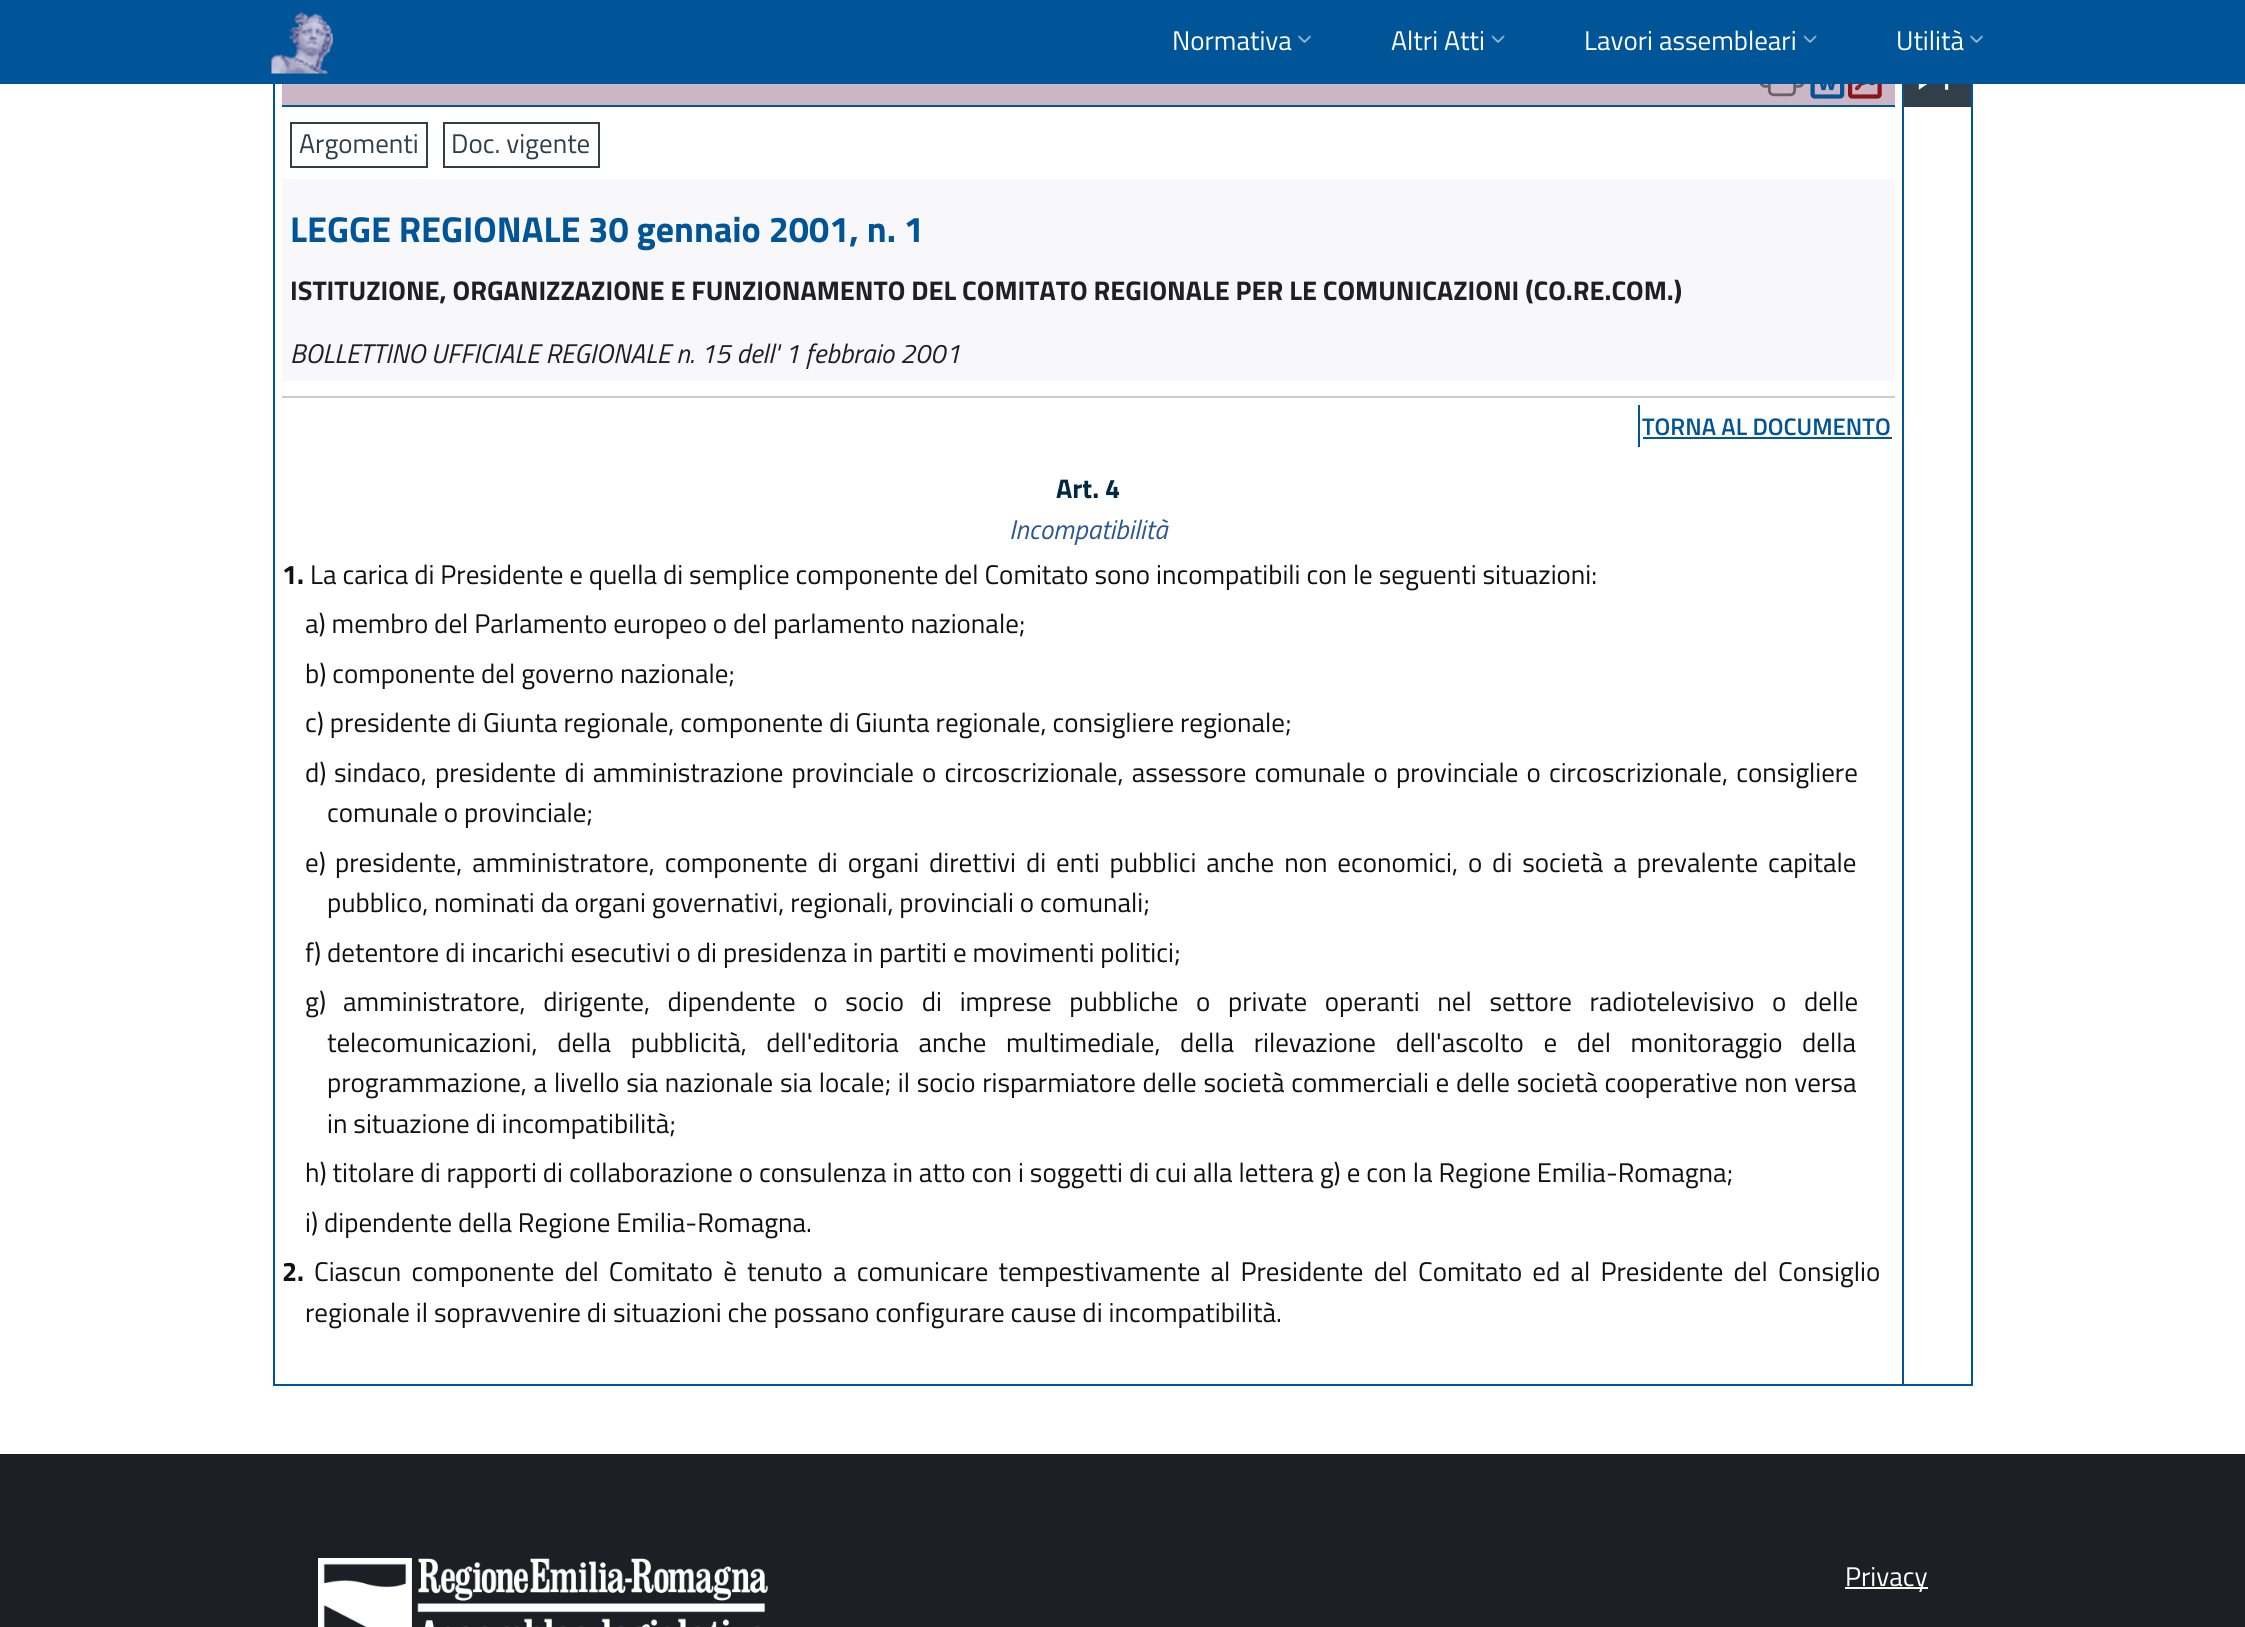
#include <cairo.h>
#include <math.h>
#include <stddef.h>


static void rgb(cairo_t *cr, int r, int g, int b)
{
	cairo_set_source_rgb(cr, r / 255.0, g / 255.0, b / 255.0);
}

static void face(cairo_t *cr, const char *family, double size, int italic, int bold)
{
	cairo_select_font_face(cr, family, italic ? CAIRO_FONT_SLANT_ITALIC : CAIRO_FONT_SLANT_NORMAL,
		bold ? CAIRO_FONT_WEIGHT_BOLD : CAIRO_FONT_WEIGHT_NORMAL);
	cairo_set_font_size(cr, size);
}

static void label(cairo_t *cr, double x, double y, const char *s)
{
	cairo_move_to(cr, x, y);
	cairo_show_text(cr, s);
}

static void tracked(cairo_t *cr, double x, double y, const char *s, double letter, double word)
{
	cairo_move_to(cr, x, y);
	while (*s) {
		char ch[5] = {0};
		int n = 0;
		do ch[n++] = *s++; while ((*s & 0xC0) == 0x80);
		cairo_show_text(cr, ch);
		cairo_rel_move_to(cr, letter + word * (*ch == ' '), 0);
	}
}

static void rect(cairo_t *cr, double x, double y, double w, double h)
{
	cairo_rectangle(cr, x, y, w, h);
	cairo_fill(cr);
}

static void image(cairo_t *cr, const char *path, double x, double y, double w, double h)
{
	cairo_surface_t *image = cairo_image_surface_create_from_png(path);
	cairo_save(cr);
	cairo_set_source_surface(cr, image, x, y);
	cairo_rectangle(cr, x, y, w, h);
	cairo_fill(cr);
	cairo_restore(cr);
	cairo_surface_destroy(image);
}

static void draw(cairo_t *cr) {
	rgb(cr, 255, 255, 255);
	cairo_paint(cr);
	cairo_rectangle(cr, 274, 46, 1698, 1339);
	rgb(cr, 0, 84, 152);
	cairo_stroke(cr);
	rect(cr, 0, 0, 2245, 84);
	image(cr, "image0.png", 271, 11, 62, 63);
	face(cr, "Titillium Web", 27, 0, 0);
	rgb(cr, 255, 255, 255);
	label(cr, 1172, 50, "Normativa");
	image(cr, "image1.png", 1298, 35, 14, 8);
	label(cr, 1391, 50, "Altri Atti");
	image(cr, "image2.png", 1491, 35, 14, 8);
	label(cr, 1584, 50, "Lavori assembleari");
	image(cr, "image2.png", 1803, 35, 14, 8);
	label(cr, 1896, 50, "Utilità");
	image(cr, "image1.png", 1970, 35, 14, 8);
	rgb(cr, 48, 63, 74);
	rect(cr, 1904, 84, 67, 23);
	image(cr, "image3.png", 1918, 84, 31, 6);
	rgb(cr, 0, 84, 152);
	rect(cr, 1902, 84, 2, 1301);
	rgb(cr, 204, 181, 197);
	rect(cr, 282, 84, 1613, 21);
	rgb(cr, 0, 84, 152);
	rect(cr, 282, 105, 1613, 2);
	image(cr, "image4.png", 1760, 84, 45, 13);
	image(cr, "image5.png", 1810, 84, 35, 15);
	image(cr, "image6.png", 1848, 84, 34, 15);
	cairo_rectangle(cr, 291, 123, 136, 44);
	rgb(cr, 48, 63, 74);
	cairo_stroke(cr);
	label(cr, 299, 153, "Argomenti");
	cairo_rectangle(cr, 444, 123, 155, 44);
	cairo_stroke(cr);
	label(cr, 451, 153, "Doc. vigente");
	rgb(cr, 248, 247, 249);
	rect(cr, 282, 179, 1613, 202);
	face(cr, "Titillium Web", 36, 0, 1);
	rgb(cr, 0, 84, 152);
	label(cr, 290, 242, "LEGGE REGIONALE 30 gennaio 2001, n. 1");
	face(cr, "Titillium Web", 27, 0, 1);
	rgb(cr, 32, 32, 32);
	label(cr, 290, 300, "ISTITUZIONE, ORGANIZZAZIONE E FUNZIONAMENTO DEL COMITATO REGIONALE PER LE COMUNICAZIONI (CO.RE.COM.)");
	face(cr, "Titillium Web", 27, 1, 0);
	label(cr, 290, 363, "BOLLETTINO UFFICIALE REGIONALE n. 15 dell' 1 febbraio 2001");
	rgb(cr, 204, 204, 204);
	rect(cr, 282, 396, 1613, 2);
	rgb(cr, 0, 84, 152);
	rect(cr, 1638, 405, 2, 42);
	face(cr, "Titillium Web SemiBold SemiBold", 24, 0, 0);
	label(cr, 1642, 435, "TORNA AL DOCUMENTO");
	rect(cr, 1643, 437, 249, 2);
	face(cr, "Titillium Web", 27, 0, 1);
	rgb(cr, 0, 40, 67);
	label(cr, 1056, 498, "Art. 4");
	face(cr, "Titillium Web", 27, 1, 0);
	rgb(cr, 45, 87, 143);
	label(cr, 1009, 539, "Incompatibilità");
	face(cr, "Titillium Web", 27, 0, 1);
	rgb(cr, 17, 17, 17);
	label(cr, 282, 584, "1.");
	face(cr, "Titillium Web", 27, 0, 0);
	label(cr, 310, 584, "La carica di Presidente e quella di semplice componente del Comitato sono incompatibili con le seguenti situazioni:");
	label(cr, 305, 633, "a) membro del Parlamento europeo o del parlamento nazionale;");
	label(cr, 305, 683, "b) componente del governo nazionale;");
	label(cr, 305, 732, "c) presidente di Giunta regionale, componente di Giunta regionale, consigliere regionale;");
	label(cr, 305, 782, "d)");
	tracked(cr, 334, 782, "sindaco, presidente di amministrazione provinciale o circoscrizionale, assessore comunale o provinciale o circoscrizionale, consigliere", 0, 2.25);
	label(cr, 327, 822, "comunale o provinciale;");
	label(cr, 305, 872, "e)");
	tracked(cr, 335, 872, "presidente, amministratore, componente di organi direttivi di enti pubblici anche non economici, o di società a prevalente capitale", 0, 4);
	label(cr, 327, 912, "pubblico, nominati da organi governativi, regionali, provinciali o comunali;");
	label(cr, 305, 962, "f) detentore di incarichi esecutivi o di presidenza in partiti e movimenti politici;");
	label(cr, 305, 1011, "g)");
	tracked(cr, 343, 1011, "amministratore, dirigente, dipendente o socio di imprese pubbliche o private operanti nel settore radiotelevisivo o delle", 0, 11.75);
	tracked(cr, 327, 1052, "telecomunicazioni, della pubblicità, dell'editoria anche multimediale, della rilevazione dell'ascolto e del monitoraggio della", 0, 13.75);
	tracked(cr, 327, 1092, "programmazione, a livello sia nazionale sia locale; il socio risparmiatore delle società commerciali e delle società cooperative non versa", 0, 0.8);
	label(cr, 327, 1133, "in situazione di incompatibilità;");
	label(cr, 305, 1182, "h) titolare di rapporti di collaborazione o consulenza in atto con i soggetti di cui alla lettera g) e con la Regione Emilia-Romagna;");
	label(cr, 305, 1232, "i) dipendente della Regione Emilia-Romagna.");
	face(cr, "Titillium Web", 27, 0, 1);
	label(cr, 282, 1281, "2.");
	face(cr, "Titillium Web", 27, 0, 0);
	tracked(cr, 314, 1281, "Ciascun componente del Comitato è tenuto a comunicare tempestivamente al Presidente del Comitato ed al Presidente del Consiglio", 0, 4.25);
	label(cr, 305, 1322, "regionale il sopravvenire di situazioni che possano configurare cause di incompatibilità.");
	rgb(cr, 28, 32, 36);
	rect(cr, 0, 1454, 2245, 173);
	image(cr, "image7.png", 318, 1558, 450, 69);
	rgb(cr, 255, 255, 255);
	rect(cr, 1845, 1587, 83, 2);
	label(cr, 1845, 1586, "Privacy");
}

int main(void) {
	cairo_surface_t *surface = cairo_image_surface_create(CAIRO_FORMAT_RGB24, 2245, 1627);
	cairo_t *cr = cairo_create(surface);
	cairo_font_options_t *options = cairo_font_options_create();
	cairo_font_options_set_hint_metrics(options, CAIRO_HINT_METRICS_OFF);
	cairo_font_options_set_hint_style(options, CAIRO_HINT_STYLE_NONE);
	cairo_set_font_options(cr, options);
	cairo_set_miter_limit(cr, 4);
	draw(cr);
	cairo_surface_write_to_png(surface, "render.png");
	cairo_font_options_destroy(options);
	cairo_destroy(cr);
	cairo_surface_destroy(surface);
	return 0;
}
